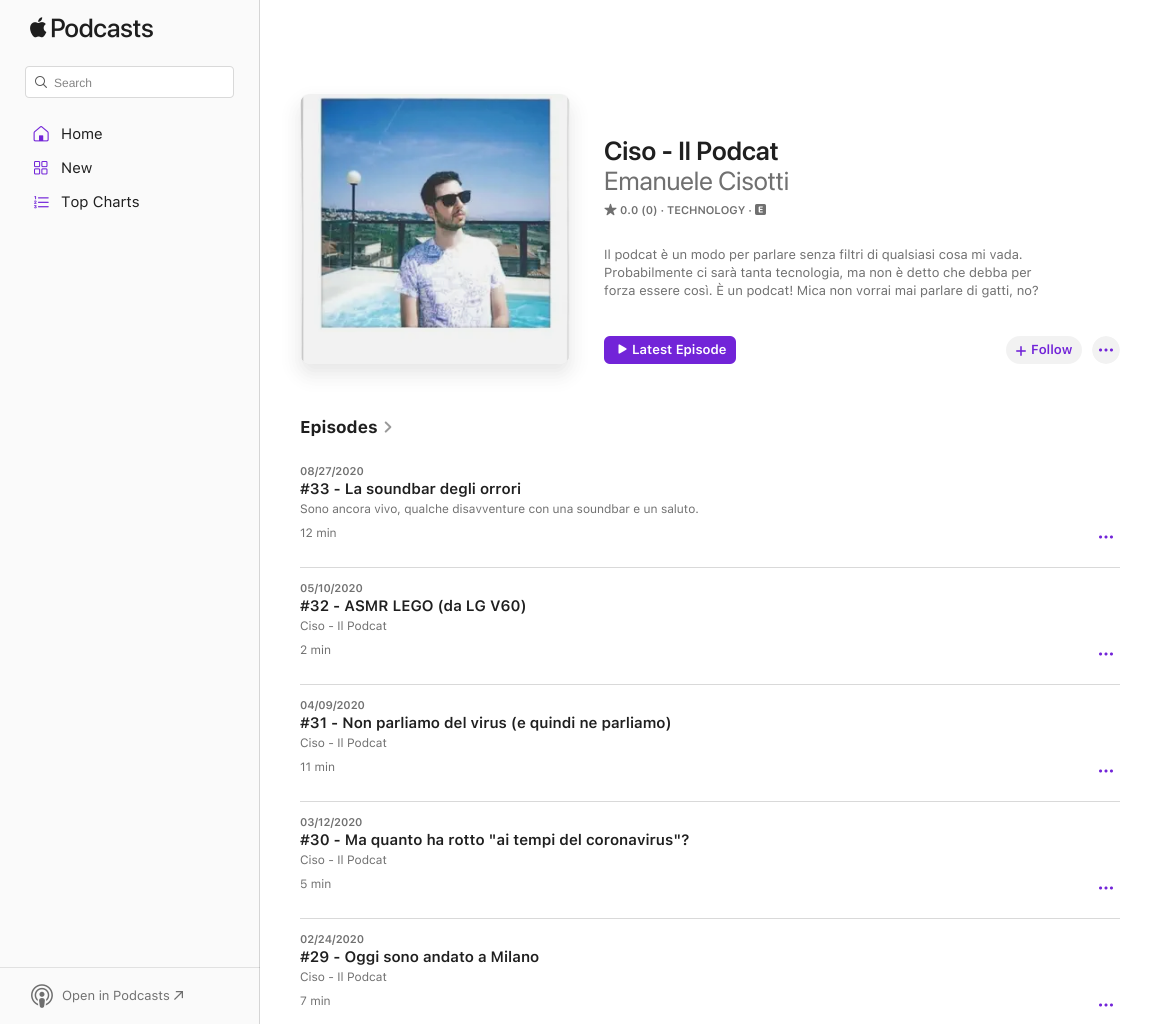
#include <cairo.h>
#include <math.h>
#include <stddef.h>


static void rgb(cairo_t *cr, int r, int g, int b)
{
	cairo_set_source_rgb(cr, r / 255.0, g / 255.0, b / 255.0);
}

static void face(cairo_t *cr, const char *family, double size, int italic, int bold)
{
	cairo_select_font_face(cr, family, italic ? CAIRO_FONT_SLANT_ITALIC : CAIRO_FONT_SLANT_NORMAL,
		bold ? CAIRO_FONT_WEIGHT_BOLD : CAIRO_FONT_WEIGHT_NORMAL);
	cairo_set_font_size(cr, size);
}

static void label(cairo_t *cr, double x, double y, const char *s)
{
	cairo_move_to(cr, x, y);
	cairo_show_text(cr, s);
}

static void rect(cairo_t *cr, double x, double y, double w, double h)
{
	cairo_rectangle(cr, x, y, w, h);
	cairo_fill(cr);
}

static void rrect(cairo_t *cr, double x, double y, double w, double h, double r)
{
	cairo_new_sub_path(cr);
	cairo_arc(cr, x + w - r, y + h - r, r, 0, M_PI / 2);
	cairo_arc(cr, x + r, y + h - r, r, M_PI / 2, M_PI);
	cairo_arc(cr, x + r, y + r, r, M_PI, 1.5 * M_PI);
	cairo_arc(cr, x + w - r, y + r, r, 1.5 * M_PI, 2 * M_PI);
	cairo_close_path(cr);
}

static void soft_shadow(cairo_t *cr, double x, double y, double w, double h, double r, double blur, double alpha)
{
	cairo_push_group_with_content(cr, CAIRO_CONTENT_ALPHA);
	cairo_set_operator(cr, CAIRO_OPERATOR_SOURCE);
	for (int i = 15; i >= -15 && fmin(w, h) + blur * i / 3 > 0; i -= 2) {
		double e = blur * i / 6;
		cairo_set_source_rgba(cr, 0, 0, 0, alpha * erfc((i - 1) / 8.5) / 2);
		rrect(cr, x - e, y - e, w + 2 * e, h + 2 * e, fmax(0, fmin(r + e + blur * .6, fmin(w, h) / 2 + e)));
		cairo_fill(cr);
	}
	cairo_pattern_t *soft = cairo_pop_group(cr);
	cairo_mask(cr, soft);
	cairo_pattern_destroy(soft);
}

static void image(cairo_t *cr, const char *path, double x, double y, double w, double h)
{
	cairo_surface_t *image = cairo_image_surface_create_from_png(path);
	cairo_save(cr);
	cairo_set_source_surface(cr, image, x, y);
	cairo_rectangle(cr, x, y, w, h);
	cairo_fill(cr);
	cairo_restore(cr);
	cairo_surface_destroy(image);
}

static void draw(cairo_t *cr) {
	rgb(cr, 255, 255, 255);
	cairo_paint(cr);
	rgb(cr, 250, 250, 250);
	rect(cr, 0, 0, 259, 1024);
	rgb(cr, 225, 225, 225);
	rect(cr, 0, 967, 260, 1);
	rgb(cr, 213, 213, 213);
	rect(cr, 259, 0, 1, 1024);
	rgb(cr, 192, 192, 192);
	rect(cr, 259, 967, 1, 1);
	image(cr, "image0.png", 30, 17, 123, 21);
	rgb(cr, 255, 255, 255);
	rrect(cr, 25.5, 66.5, 208, 31, 3.5);
	cairo_fill_preserve(cr);
	rgb(cr, 217, 217, 217);
	cairo_set_line_width(cr, 1);
	cairo_stroke(cr);
	image(cr, "image1.png", 35, 76, 12, 12);
	face(cr, "Liberation Sans", 12, 0, 0);
	rgb(cr, 133, 133, 133);
	label(cr, 54, 87, "Search");
	image(cr, "image2.png", 33, 126, 16, 16);
	face(cr, "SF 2", 15, 0, 0);
	rgb(cr, 31, 31, 31);
	label(cr, 61, 139, "Home");
	image(cr, "image3.png", 34, 161, 14, 14);
	label(cr, 61, 173, "New");
	image(cr, "image4.png", 34, 196, 15, 13);
	label(cr, 61, 207, "Top Charts");
	image(cr, "image5.png", 31, 984, 22, 24);
	face(cr, "SF 2", 13, 0, 0);
	rgb(cr, 112, 112, 112);
	label(cr, 62, 1000, "Open in Podcasts");
	image(cr, "image6.png", 174, 991, 9, 9);
	cairo_save(cr);
	cairo_set_fill_rule(cr, CAIRO_FILL_RULE_EVEN_ODD);
	cairo_new_path(cr);
	cairo_move_to(cr, 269, 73);
	cairo_line_to(cr, 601, 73);
	cairo_line_to(cr, 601, 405);
	cairo_line_to(cr, 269, 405);
	cairo_close_path(cr);
	cairo_move_to(cr, 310, 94);
	cairo_line_to(cr, 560, 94);
	cairo_curve_to(cr, 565.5, 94, 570, 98.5, 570, 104);
	cairo_line_to(cr, 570, 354);
	cairo_curve_to(cr, 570, 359.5, 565.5, 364, 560, 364);
	cairo_line_to(cr, 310, 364);
	cairo_curve_to(cr, 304.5, 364, 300, 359.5, 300, 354);
	cairo_line_to(cr, 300, 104);
	cairo_curve_to(cr, 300, 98.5, 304.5, 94, 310, 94);
	cairo_close_path(cr);
	cairo_clip(cr);
	rgb(cr, 0, 0, 0);
	soft_shadow(cr, 300, 104, 270, 270, 10, 10, 0.1);
	cairo_restore(cr);
	image(cr, "image7.png", 300, 94, 270, 267);
	cairo_set_source_rgba(cr, 0.502, 0.502, 0.502, 0.1);
	cairo_new_path(cr);
	cairo_move_to(cr, 310, 94);
	cairo_line_to(cr, 560, 94);
	cairo_curve_to(cr, 566, 94, 570, 98, 570, 104);
	cairo_line_to(cr, 570, 354);
	cairo_curve_to(cr, 570, 360, 566, 364, 560, 364);
	cairo_line_to(cr, 310, 364);
	cairo_curve_to(cr, 304, 364, 300, 360, 300, 354);
	cairo_line_to(cr, 300, 104);
	cairo_curve_to(cr, 300, 98, 304, 94, 310, 94);
	cairo_close_path(cr);
	cairo_fill(cr);
	face(cr, "SF 2 SemiBold", 26, 0, 0);
	rgb(cr, 31, 31, 31);
	label(cr, 604, 160, "Ciso - Il Podcat");
	face(cr, "SF", 26, 0, 0);
	rgb(cr, 112, 112, 112);
	label(cr, 604, 190, "Emanuele Cisotti");
	image(cr, "image8.png", 604, 203, 13, 13);
	face(cr, "SF SemiBold", 11, 0, 0);
	label(cr, 620, 214, "0.0 (0) · TECHNOLOGY ·");
	image(cr, "image9.png", 755, 204, 11, 11);
	face(cr, "SF 2", 13, 0, 0);
	label(cr, 604, 259, "Il podcat è un modo per parlare senza filtri di qualsiasi cosa mi vada.");
	label(cr, 604, 277, "Probabilmente ci sarà tanta tecnologia, ma non è detto che debba per");
	label(cr, 604, 295, "forza essere così. È un podcat! Mica non vorrai mai parlare di gatti, no?");
	rgb(cr, 114, 36, 216);
	rrect(cr, 604, 336, 132, 28, 6);
	cairo_fill(cr);
	image(cr, "image10.png", 618, 344, 9, 10);
	face(cr, "SF SemiBold", 13, 0, 0);
	rgb(cr, 255, 255, 255);
	label(cr, 632, 354, "Latest Episode");
	rgb(cr, 242, 242, 242);
	rrect(cr, 1006, 336, 76, 28, 14);
	cairo_fill(cr);
	image(cr, "image11.png", 1016, 346, 10, 10);
	rgb(cr, 114, 36, 216);
	label(cr, 1031, 354, "Follow");
	image(cr, "image12.png", 1092, 336, 28, 28);
	face(cr, "SF", 17, 0, 1);
	rgb(cr, 31, 31, 31);
	label(cr, 300, 433, "Episodes");
	image(cr, "image13.png", 384, 421, 8, 12);
	rgb(cr, 217, 217, 217);
	rect(cr, 300, 567, 820, 1);
	face(cr, "SF SemiBold", 11, 0, 0);
	rgb(cr, 112, 112, 112);
	label(cr, 300, 475, "08/27/2020");
	face(cr, "SF SemiBold", 15, 0, 0);
	rgb(cr, 31, 31, 31);
	label(cr, 300, 494, "#33 - La soundbar degli orrori");
	face(cr, "SF 2", 12, 0, 0);
	rgb(cr, 112, 112, 112);
	label(cr, 300, 513, "Sono ancora vivo, qualche disavventure con una soundbar e un saluto.");
	label(cr, 300, 537, "12 min");
	image(cr, "image14.png", 1099, 535, 14, 4);
	rgb(cr, 217, 217, 217);
	rect(cr, 300, 684, 820, 1);
	face(cr, "SF SemiBold", 11, 0, 0);
	rgb(cr, 112, 112, 112);
	label(cr, 300, 592, "05/10/2020");
	face(cr, "SF SemiBold", 15, 0, 0);
	rgb(cr, 31, 31, 31);
	label(cr, 300, 611, "#32 - ASMR LEGO (da LG V60)");
	face(cr, "SF 2", 12, 0, 0);
	rgb(cr, 112, 112, 112);
	label(cr, 300, 630, "Ciso - Il Podcat");
	label(cr, 300, 654, "2 min");
	image(cr, "image14.png", 1099, 652, 14, 4);
	rgb(cr, 217, 217, 217);
	rect(cr, 300, 801, 820, 1);
	face(cr, "SF SemiBold", 11, 0, 0);
	rgb(cr, 112, 112, 112);
	label(cr, 300, 709, "04/09/2020");
	face(cr, "SF SemiBold", 15, 0, 0);
	rgb(cr, 31, 31, 31);
	label(cr, 300, 728, "#31 - Non parliamo del virus (e quindi ne parliamo)");
	face(cr, "SF 2", 12, 0, 0);
	rgb(cr, 112, 112, 112);
	label(cr, 300, 747, "Ciso - Il Podcat");
	label(cr, 300, 771, "11 min");
	image(cr, "image14.png", 1099, 769, 14, 4);
	rgb(cr, 217, 217, 217);
	rect(cr, 300, 918, 820, 1);
	face(cr, "SF SemiBold", 11, 0, 0);
	rgb(cr, 112, 112, 112);
	label(cr, 300, 826, "03/12/2020");
	face(cr, "SF SemiBold", 15, 0, 0);
	rgb(cr, 31, 31, 31);
	label(cr, 300, 845, "#30 - Ma quanto ha rotto \"ai tempi del coronavirus\"?");
	face(cr, "SF 2", 12, 0, 0);
	rgb(cr, 112, 112, 112);
	label(cr, 300, 864, "Ciso - Il Podcat");
	label(cr, 300, 888, "5 min");
	image(cr, "image14.png", 1099, 886, 14, 4);
	face(cr, "SF SemiBold", 11, 0, 0);
	label(cr, 300, 943, "02/24/2020");
	face(cr, "SF SemiBold", 15, 0, 0);
	rgb(cr, 31, 31, 31);
	label(cr, 300, 962, "#29 - Oggi sono andato a Milano");
	face(cr, "SF 2", 12, 0, 0);
	rgb(cr, 112, 112, 112);
	label(cr, 300, 981, "Ciso - Il Podcat");
	label(cr, 300, 1005, "7 min");
	image(cr, "image14.png", 1099, 1003, 14, 4);
}

int main(void) {
	cairo_surface_t *surface = cairo_image_surface_create(CAIRO_FORMAT_RGB24, 1160, 1024);
	cairo_t *cr = cairo_create(surface);
	cairo_font_options_t *options = cairo_font_options_create();
	cairo_font_options_set_hint_metrics(options, CAIRO_HINT_METRICS_OFF);
	cairo_font_options_set_hint_style(options, CAIRO_HINT_STYLE_NONE);
	cairo_set_font_options(cr, options);
	cairo_set_miter_limit(cr, 4);
	draw(cr);
	cairo_surface_write_to_png(surface, "render.png");
	cairo_font_options_destroy(options);
	cairo_destroy(cr);
	cairo_surface_destroy(surface);
	return 0;
}
